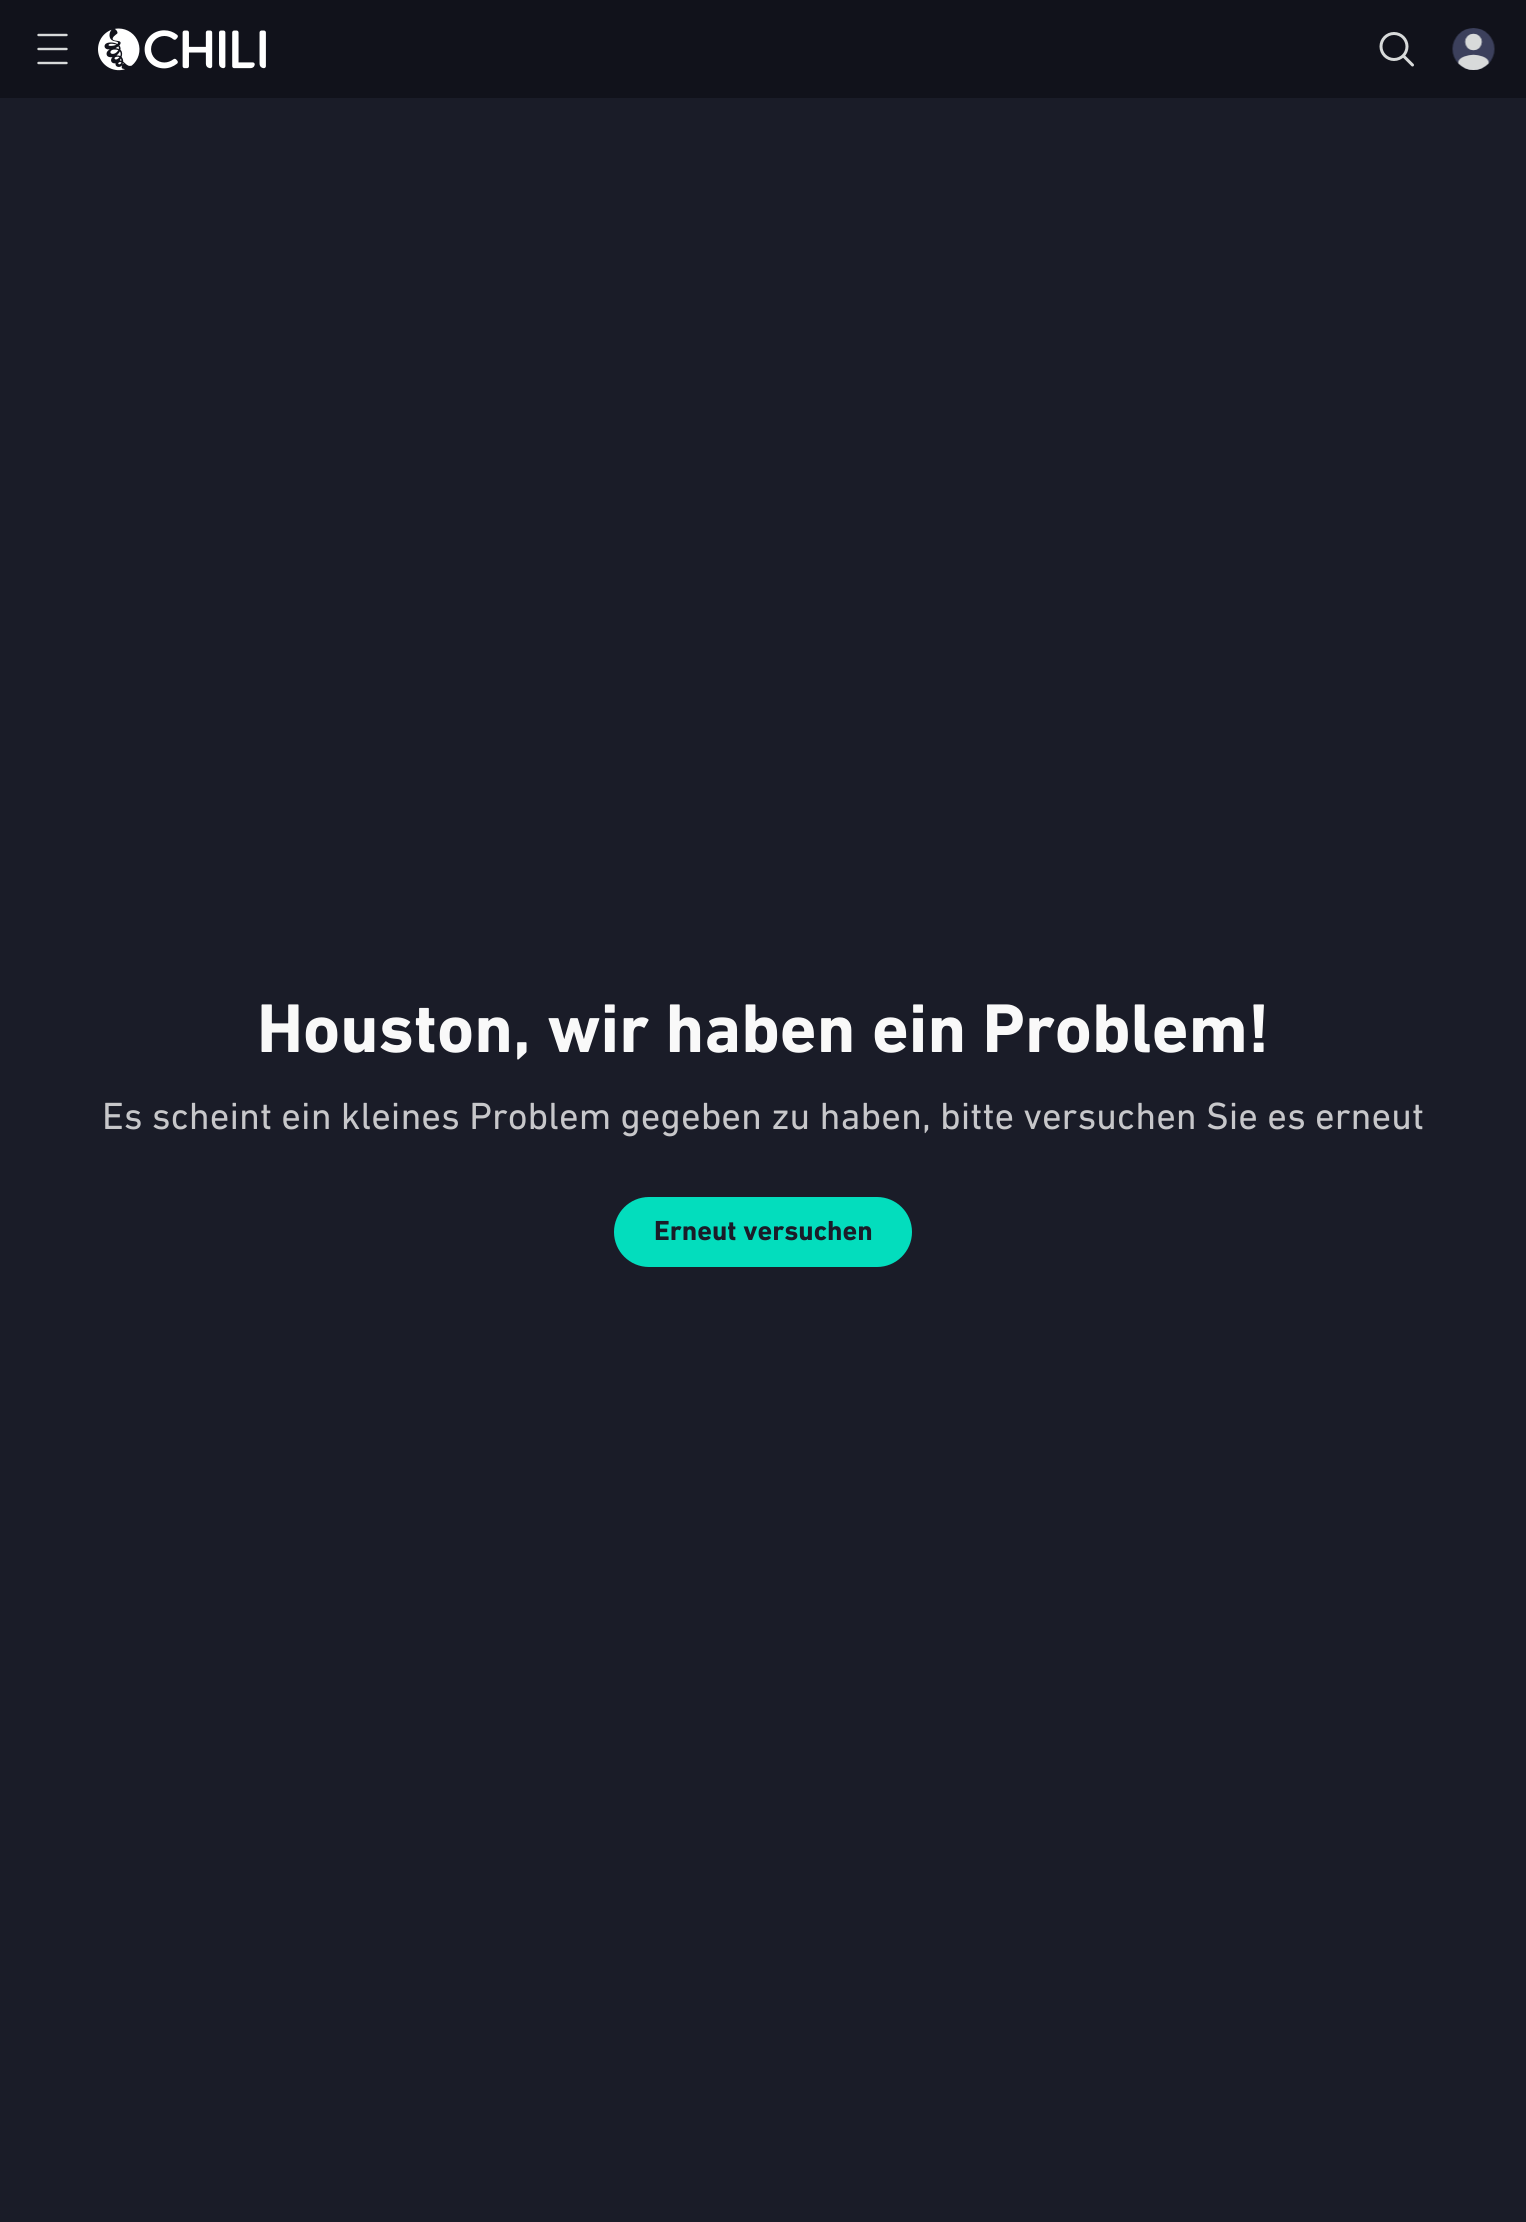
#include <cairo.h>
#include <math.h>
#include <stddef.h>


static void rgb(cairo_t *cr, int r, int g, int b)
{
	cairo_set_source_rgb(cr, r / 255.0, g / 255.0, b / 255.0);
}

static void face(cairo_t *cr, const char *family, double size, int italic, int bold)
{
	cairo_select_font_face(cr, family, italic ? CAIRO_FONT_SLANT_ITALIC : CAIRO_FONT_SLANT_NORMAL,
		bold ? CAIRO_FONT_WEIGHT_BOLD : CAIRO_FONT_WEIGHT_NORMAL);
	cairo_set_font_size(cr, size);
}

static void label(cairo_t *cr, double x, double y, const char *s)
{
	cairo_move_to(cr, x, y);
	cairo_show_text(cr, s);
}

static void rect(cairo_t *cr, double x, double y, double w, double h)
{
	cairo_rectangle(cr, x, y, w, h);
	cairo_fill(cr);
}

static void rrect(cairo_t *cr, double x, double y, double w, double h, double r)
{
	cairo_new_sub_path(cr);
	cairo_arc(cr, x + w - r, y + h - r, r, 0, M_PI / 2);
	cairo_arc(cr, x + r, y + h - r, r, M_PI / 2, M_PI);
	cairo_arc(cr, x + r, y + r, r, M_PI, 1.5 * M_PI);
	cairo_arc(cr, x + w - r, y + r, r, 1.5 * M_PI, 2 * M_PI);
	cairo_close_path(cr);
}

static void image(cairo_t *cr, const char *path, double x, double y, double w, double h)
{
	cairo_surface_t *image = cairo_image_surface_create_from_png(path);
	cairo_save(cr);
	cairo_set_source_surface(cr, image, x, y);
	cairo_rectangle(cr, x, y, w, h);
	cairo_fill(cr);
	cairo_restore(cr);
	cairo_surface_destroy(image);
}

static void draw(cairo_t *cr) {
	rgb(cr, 26, 28, 40);
	cairo_paint(cr);
	rgb(cr, 17, 18, 27);
	rect(cr, 0, 0, 1526, 98);
	cairo_new_path(cr);
	cairo_move_to(cr, 38.5, 49);
	cairo_line_to(cr, 66.5, 49);
	cairo_move_to(cr, 38.5, 63);
	cairo_line_to(cr, 66.5, 63);
	cairo_move_to(cr, 38.5, 35);
	cairo_line_to(cr, 66.5, 35);
	rgb(cr, 216, 218, 218);
	cairo_set_line_width(cr, 2.4);
	cairo_set_line_cap(cr, CAIRO_LINE_CAP_ROUND);
	cairo_stroke(cr);
	image(cr, "image0.png", 98, 28, 168, 43);
	cairo_new_path(cr);
	cairo_move_to(cr, 1412.5, 65);
	cairo_line_to(cr, 1404, 56.5);
	cairo_set_line_width(cr, 3);
	cairo_stroke(cr);
	cairo_arc(cr, 1394, 46.5, 13, 0, 2 * M_PI);
	cairo_set_line_cap(cr, CAIRO_LINE_CAP_BUTT);
	cairo_stroke(cr);
	image(cr, "image1.png", 1452, 28, 43, 42);
	face(cr, "DIN Next", 70, 0, 1);
	rgb(cr, 249, 249, 249);
	label(cr, 257, 1052, "Houston, wir haben ein Problem!");
	face(cr, "DIN Next", 38.5, 0, 0);
	rgb(cr, 199, 199, 202);
	label(cr, 102, 1129, "Es scheint ein kleines Problem gegeben zu haben, bitte versuchen Sie es erneut");
	rgb(cr, 3, 221, 189);
	rrect(cr, 614, 1197, 298, 70, 35);
	cairo_fill(cr);
	face(cr, "DIN Next", 28, 0, 1);
	rgb(cr, 26, 28, 40);
	label(cr, 654, 1240, "Erneut versuchen");
}

int main(void) {
	cairo_surface_t *surface = cairo_image_surface_create(CAIRO_FORMAT_RGB24, 1526, 2222);
	cairo_t *cr = cairo_create(surface);
	cairo_font_options_t *options = cairo_font_options_create();
	cairo_font_options_set_hint_metrics(options, CAIRO_HINT_METRICS_OFF);
	cairo_font_options_set_hint_style(options, CAIRO_HINT_STYLE_NONE);
	cairo_set_font_options(cr, options);
	cairo_set_miter_limit(cr, 4);
	draw(cr);
	cairo_surface_write_to_png(surface, "render.png");
	cairo_font_options_destroy(options);
	cairo_destroy(cr);
	cairo_surface_destroy(surface);
	return 0;
}
